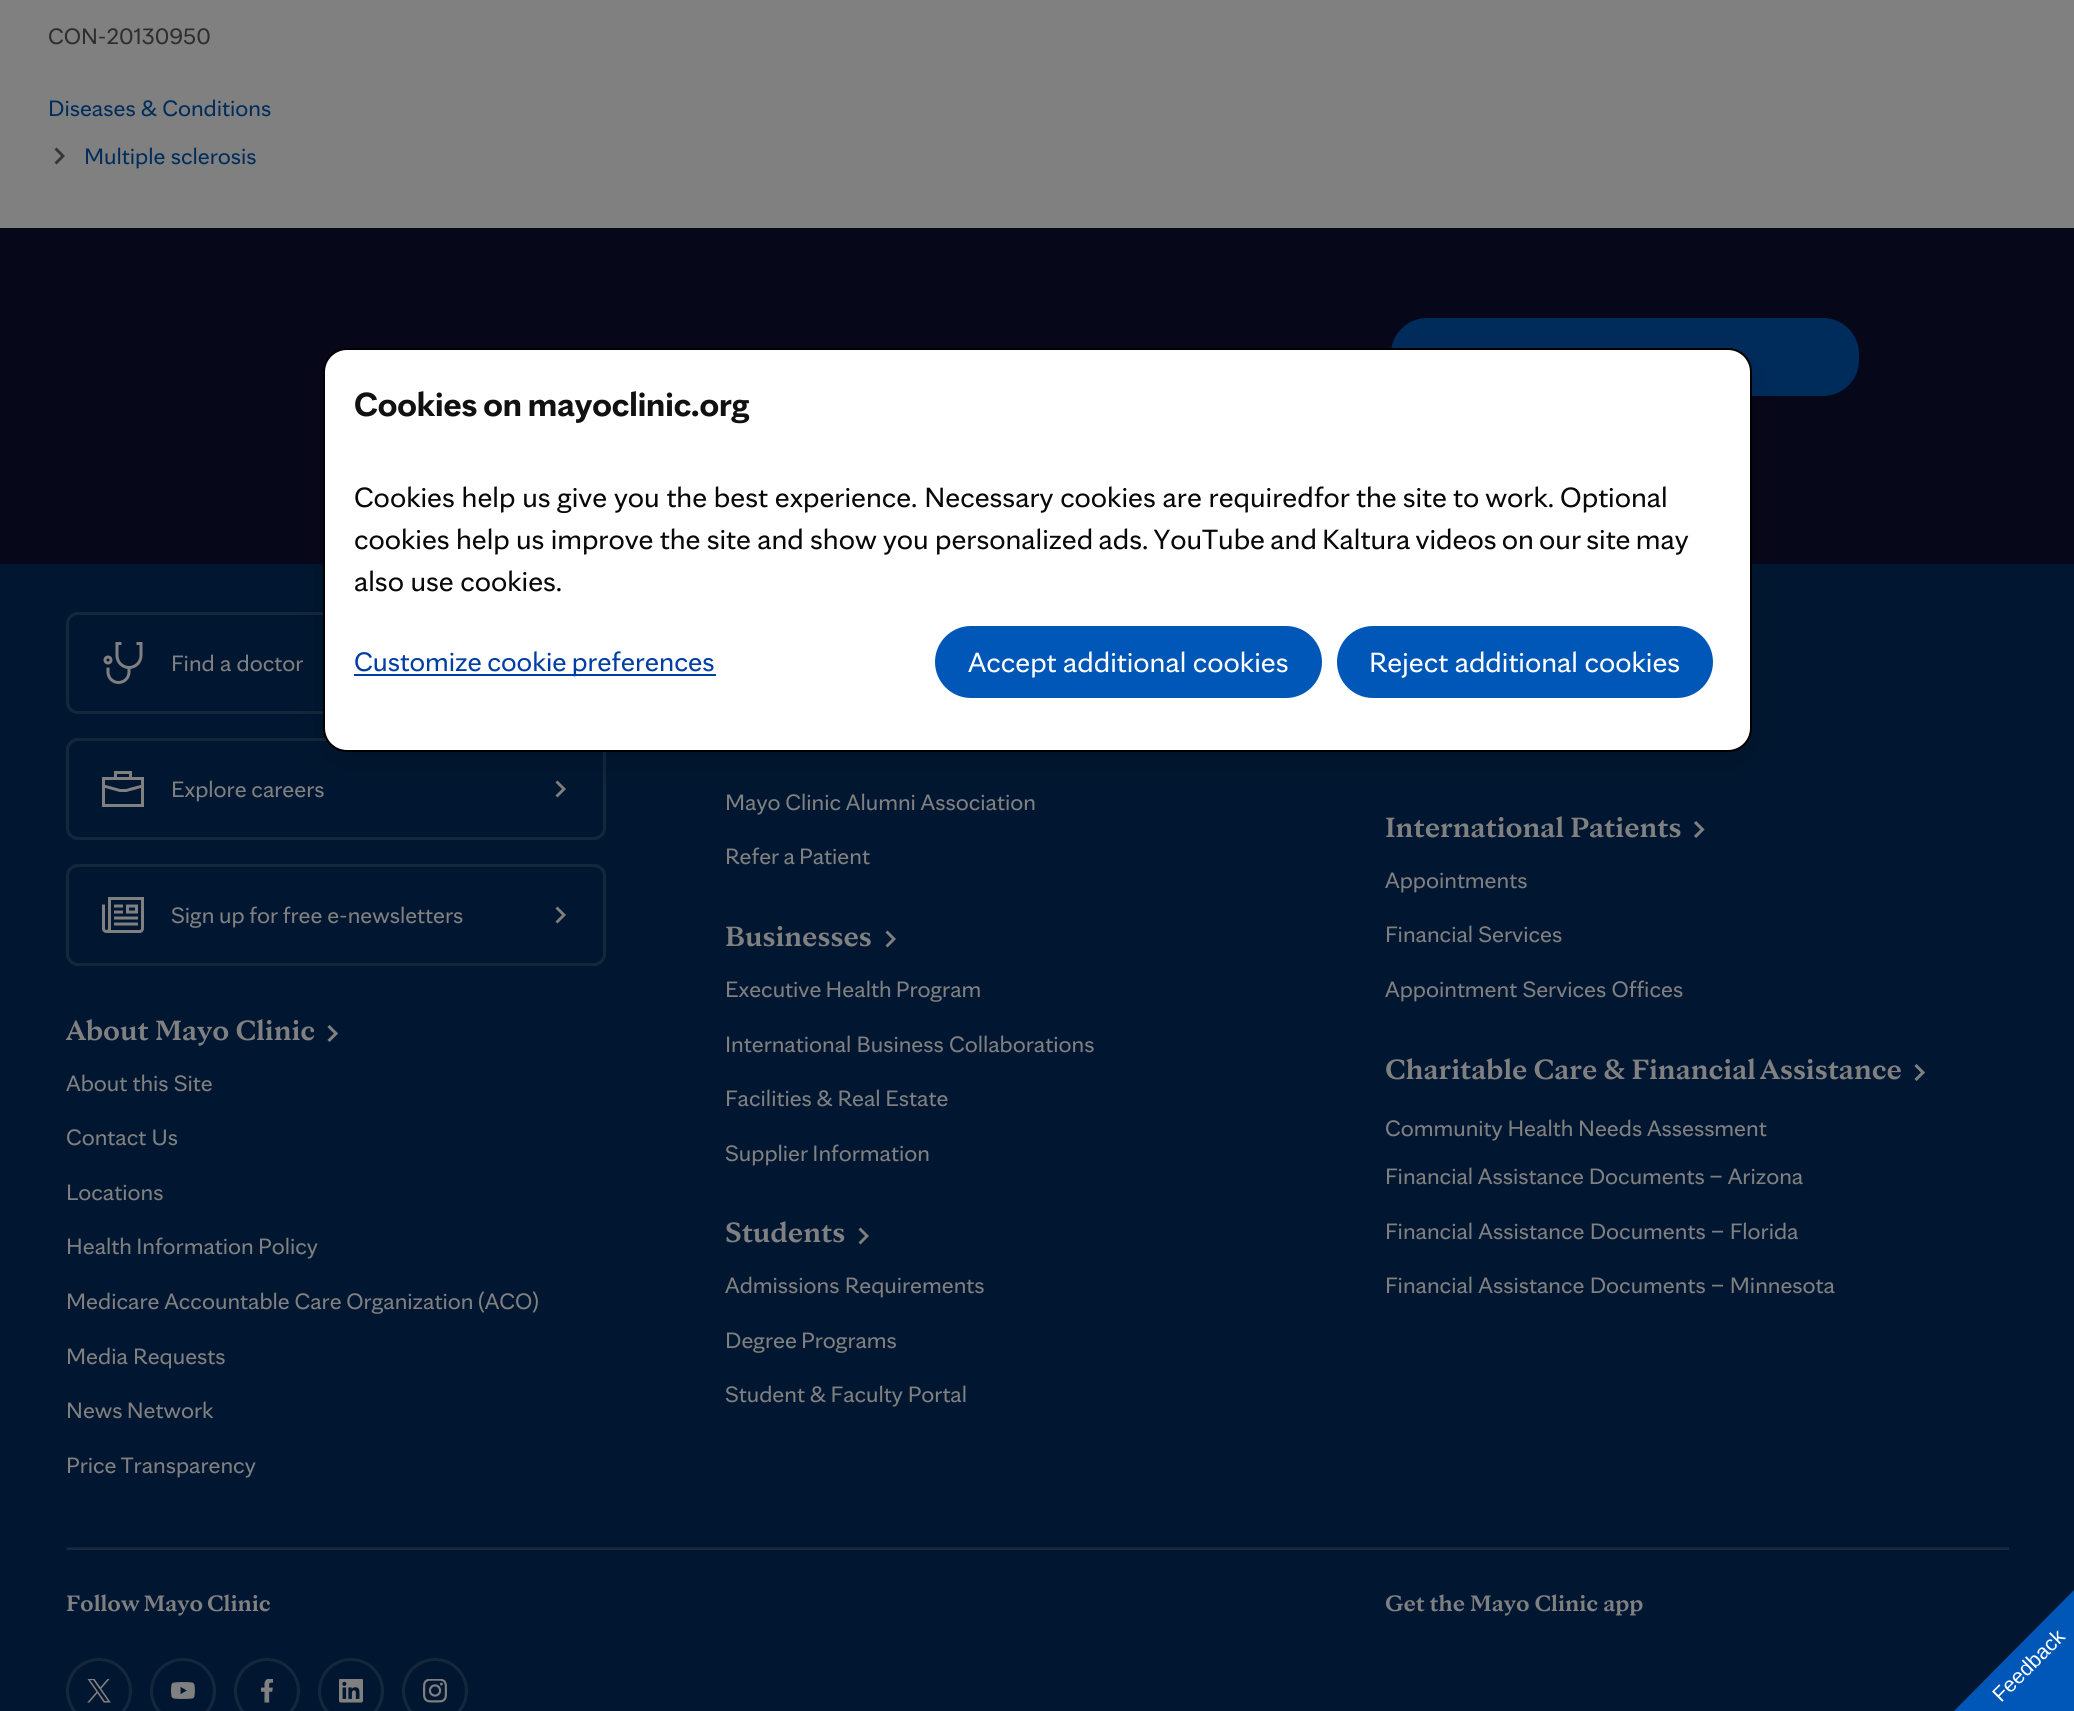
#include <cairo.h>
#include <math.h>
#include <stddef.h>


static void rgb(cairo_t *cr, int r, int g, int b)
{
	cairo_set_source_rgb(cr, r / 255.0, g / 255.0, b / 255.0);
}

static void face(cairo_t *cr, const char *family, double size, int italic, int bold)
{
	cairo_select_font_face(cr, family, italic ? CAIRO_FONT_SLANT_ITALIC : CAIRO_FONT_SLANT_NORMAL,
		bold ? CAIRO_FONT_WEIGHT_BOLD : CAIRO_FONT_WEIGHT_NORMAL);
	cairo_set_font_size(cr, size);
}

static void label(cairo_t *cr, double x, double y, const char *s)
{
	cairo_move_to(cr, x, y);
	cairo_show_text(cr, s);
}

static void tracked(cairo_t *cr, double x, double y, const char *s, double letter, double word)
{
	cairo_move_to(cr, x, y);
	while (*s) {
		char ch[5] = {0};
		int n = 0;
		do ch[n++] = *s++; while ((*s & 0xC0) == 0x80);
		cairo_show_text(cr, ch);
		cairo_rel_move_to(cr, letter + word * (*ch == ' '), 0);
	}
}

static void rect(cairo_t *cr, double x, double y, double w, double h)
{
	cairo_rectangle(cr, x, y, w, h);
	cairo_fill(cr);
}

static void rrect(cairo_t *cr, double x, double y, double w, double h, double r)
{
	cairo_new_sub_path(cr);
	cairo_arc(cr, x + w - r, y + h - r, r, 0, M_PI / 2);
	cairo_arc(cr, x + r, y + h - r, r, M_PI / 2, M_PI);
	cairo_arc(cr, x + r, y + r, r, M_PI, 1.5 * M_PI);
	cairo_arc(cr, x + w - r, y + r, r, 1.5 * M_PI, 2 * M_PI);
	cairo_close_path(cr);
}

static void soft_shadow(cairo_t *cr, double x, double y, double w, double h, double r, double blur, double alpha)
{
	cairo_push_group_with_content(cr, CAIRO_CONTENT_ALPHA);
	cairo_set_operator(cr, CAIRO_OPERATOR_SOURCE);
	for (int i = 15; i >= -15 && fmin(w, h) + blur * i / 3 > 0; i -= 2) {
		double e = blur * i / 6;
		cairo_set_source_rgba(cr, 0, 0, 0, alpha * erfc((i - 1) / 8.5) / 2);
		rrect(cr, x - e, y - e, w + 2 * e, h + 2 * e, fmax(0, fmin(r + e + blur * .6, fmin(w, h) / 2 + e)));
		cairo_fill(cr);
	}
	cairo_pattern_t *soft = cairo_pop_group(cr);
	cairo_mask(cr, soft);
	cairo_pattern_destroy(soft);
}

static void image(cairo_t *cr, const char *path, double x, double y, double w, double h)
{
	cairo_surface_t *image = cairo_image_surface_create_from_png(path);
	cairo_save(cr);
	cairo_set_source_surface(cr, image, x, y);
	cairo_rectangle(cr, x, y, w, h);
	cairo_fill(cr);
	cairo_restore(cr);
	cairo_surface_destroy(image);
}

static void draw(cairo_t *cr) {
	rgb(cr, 128, 128, 128);
	cairo_paint(cr);
	face(cr, "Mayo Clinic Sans", 24, 0, 0);
	rgb(cr, 45, 45, 45);
	label(cr, 48, 44, "CON-20130950");
	rgb(cr, 0, 44, 92);
	label(cr, 48, 116, "Diseases & Conditions");
	rgb(cr, 53, 53, 53);
	cairo_new_path(cr);
	cairo_move_to(cr, 56.5, 164.5);
	cairo_line_to(cr, 54.5, 162.5);
	cairo_line_to(cr, 61, 156);
	cairo_line_to(cr, 54.5, 149.5);
	cairo_line_to(cr, 56.5, 147.5);
	cairo_line_to(cr, 65, 156);
	cairo_close_path(cr);
	cairo_fill(cr);
	rgb(cr, 0, 44, 92);
	label(cr, 84, 164, "Multiple sclerosis");
	rgb(cr, 7, 7, 26);
	rect(cr, 0, 228, 2074, 336);
	rgb(cr, 0, 44, 92);
	rrect(cr, 1391, 318, 468, 78, 36);
	cairo_fill(cr);
	rgb(cr, 1, 23, 49);
	rect(cr, 0, 564, 2074, 1147);
	rrect(cr, 67.5, 613.5, 537, 99, 10.5);
	rgb(cr, 20, 39, 61);
	cairo_set_line_width(cr, 3);
	cairo_stroke(cr);
	image(cr, "image0.png", 103, 642, 40, 42);
	rgb(cr, 128, 128, 128);
	label(cr, 171, 671, "Find a doctor");
	rrect(cr, 67.5, 739.5, 537, 99, 10.5);
	rgb(cr, 20, 39, 61);
	cairo_stroke(cr);
	image(cr, "image1.png", 102, 771, 42, 36);
	rgb(cr, 128, 128, 128);
	tracked(cr, 171, 797, "Explore careers", 0, -0.5);
	cairo_new_path(cr);
	cairo_move_to(cr, 557.5, 797.5);
	cairo_line_to(cr, 555.5, 795.5);
	cairo_line_to(cr, 562, 789);
	cairo_line_to(cr, 555.5, 782.5);
	cairo_line_to(cr, 557.5, 780.5);
	cairo_line_to(cr, 566, 789);
	cairo_close_path(cr);
	cairo_fill(cr);
	rrect(cr, 67.5, 865.5, 537, 99, 10.5);
	rgb(cr, 20, 39, 61);
	cairo_stroke(cr);
	image(cr, "image2.png", 102, 897, 42, 36);
	rgb(cr, 128, 128, 128);
	tracked(cr, 171, 923, "Sign up for free e-newsletters", 0, -0.5);
	cairo_new_path(cr);
	cairo_move_to(cr, 557.5, 923.5);
	cairo_line_to(cr, 555.5, 921.5);
	cairo_line_to(cr, 562, 915);
	cairo_line_to(cr, 555.5, 908.5);
	cairo_line_to(cr, 557.5, 906.5);
	cairo_line_to(cr, 566, 915);
	cairo_close_path(cr);
	cairo_fill(cr);
	face(cr, "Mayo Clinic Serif", 30, 0, 1);
	label(cr, 66, 1040, "About Mayo Clinic");
	image(cr, "image3.png", 327, 1025, 11, 17);
	face(cr, "Mayo Clinic Sans", 24, 0, 0);
	label(cr, 66, 1091, "About this Site");
	label(cr, 66, 1145, "Contact Us");
	label(cr, 66, 1200, "Locations");
	tracked(cr, 66, 1254, "Health Information Policy", 0, -1);
	tracked(cr, 66, 1309, "Medicare Accountable Care Organization (ACO)", 0, -0.5);
	label(cr, 66, 1364, "Media Requests");
	tracked(cr, 66, 1418, "News Network", 0, -1);
	tracked(cr, 66, 1473, "Price Transparency", 0, -1);
	tracked(cr, 725, 810, "Mayo Clinic Alumni Association", 0, -0.5);
	tracked(cr, 725, 864, "Refer a Patient", 0, -1);
	face(cr, "Mayo Clinic Serif", 30, 0, 1);
	label(cr, 725, 946, "Businesses");
	cairo_new_path(cr);
	cairo_move_to(cr, 887.5, 947.5);
	cairo_line_to(cr, 885.5, 945.5);
	cairo_line_to(cr, 892, 939);
	cairo_line_to(cr, 885.5, 932.5);
	cairo_line_to(cr, 887.5, 930.5);
	cairo_line_to(cr, 896, 939);
	cairo_close_path(cr);
	cairo_fill(cr);
	face(cr, "Mayo Clinic Sans", 24, 0, 0);
	tracked(cr, 725, 997, "Executive Health Program", 0, -1);
	label(cr, 725, 1052, "International Business Collaborations");
	tracked(cr, 725, 1106, "Facilities & Real Estate", 0, -0.5);
	tracked(cr, 725, 1161, "Supplier Information", 0, -1);
	face(cr, "Mayo Clinic Serif", 30, 0, 1);
	label(cr, 725, 1242, "Students");
	cairo_new_path(cr);
	cairo_move_to(cr, 860.5, 1244.5);
	cairo_line_to(cr, 858.5, 1242.5);
	cairo_line_to(cr, 865, 1236);
	cairo_line_to(cr, 858.5, 1229.5);
	cairo_line_to(cr, 860.5, 1227.5);
	cairo_line_to(cr, 869, 1236);
	cairo_close_path(cr);
	cairo_fill(cr);
	face(cr, "Mayo Clinic Sans", 24, 0, 0);
	label(cr, 725, 1293, "Admissions Requirements");
	tracked(cr, 725, 1348, "Degree Programs", 0, -1);
	tracked(cr, 725, 1402, "Student & Faculty Portal", 0, -0.5);
	face(cr, "Mayo Clinic Serif", 30, 0, 1);
	label(cr, 1385, 837, "International Patients");
	image(cr, "image4.png", 1694, 821, 11, 17);
	face(cr, "Mayo Clinic Sans", 24, 0, 0);
	label(cr, 1385, 888, "Appointments");
	label(cr, 1385, 942, "Financial Services");
	label(cr, 1385, 997, "Appointment Services Offices");
	face(cr, "Mayo Clinic Serif", 30, 0, 1);
	label(cr, 1385, 1079, "Charitable Care & Financial");
	label(cr, 1760, 1079, "Assistance");
	image(cr, "image3.png", 1914, 1064, 11, 17);
	face(cr, "Mayo Clinic Sans", 24, 0, 0);
	tracked(cr, 1385, 1136, "Community Health Needs Assessment", 0, -0.5);
	tracked(cr, 1385, 1184, "Financial Assistance Documents – Arizona", 0, -0.5);
	label(cr, 1385, 1239, "Financial Assistance Documents – Florida");
	label(cr, 1385, 1293, "Financial Assistance Documents – Minnesota");
	rgb(cr, 17, 34, 55);
	rect(cr, 66, 1547, 1943, 1);
	rgb(cr, 24, 42, 63);
	rect(cr, 2007, 1547, 2, 3);
	rect(cr, 66, 1548, 1943, 2);
	rgb(cr, 17, 34, 55);
	rect(cr, 66, 1547, 2, 3);
	face(cr, "Mayo Clinic Serif", 24, 0, 1);
	rgb(cr, 128, 128, 128);
	tracked(cr, 66, 1611, "Follow Mayo Clinic", 0, -1);
	cairo_new_path(cr);
	cairo_arc(cr, 99, 1691, 31.5, 0, 2 * M_PI);
	rgb(cr, 20, 39, 61);
	cairo_stroke(cr);
	image(cr, "image5.png", 87, 1679, 24, 24);
	cairo_arc(cr, 183, 1691, 31.5, 0, 2 * M_PI);
	cairo_stroke(cr);
	image(cr, "image6.png", 171, 1682, 24, 17);
	cairo_arc(cr, 267, 1691, 31.5, 0, 2 * M_PI);
	cairo_stroke(cr);
	image(cr, "image7.png", 261, 1679, 12, 24);
	cairo_arc(cr, 351, 1691, 31.5, 0, 2 * M_PI);
	cairo_stroke(cr);
	image(cr, "image8.png", 339, 1679, 24, 24);
	cairo_arc(cr, 435, 1691, 31.5, 0, 2 * M_PI);
	cairo_stroke(cr);
	image(cr, "image9.png", 423, 1679, 24, 24);
	rgb(cr, 128, 128, 128);
	label(cr, 1385, 1611, "Get the Mayo Clinic app");
	rgb(cr, 0, 0, 0);
	soft_shadow(cr, 323, 360, 1429, 404, 24, 18, 0.16);
	rgb(cr, 255, 255, 255);
	rrect(cr, 324, 349, 1427, 402, 23);
	cairo_fill_preserve(cr);
	rgb(cr, 0, 0, 0);
	cairo_set_line_width(cr, 2);
	cairo_stroke(cr);
	face(cr, "Mayo Clinic Sans", 36, 0, 1);
	rgb(cr, 17, 17, 17);
	tracked(cr, 354, 416, "Cookies on mayoclinic.org", 0, -1);
	face(cr, "Mayo Clinic Sans", 30, 0, 0);
	rgb(cr, 8, 8, 8);
	tracked(cr, 354, 507, "Cookies help us give you the best experience. Necessary cookies are required", 0, 0.25);
	tracked(cr, 1314, 507, "for the site to work. Optional", 0, -0.5);
	tracked(cr, 354, 549, "cookies help us improve the site and show you", 0, -0.25);
	tracked(cr, 935, 549, "personalized ads. YouTube and Kaltura videos on our site may", 0, -1.25);
	label(cr, 354, 591, "also use cookies.");
	rgb(cr, 0, 61, 165);
	rect(cr, 354, 674, 362, 2);
	face(cr, "Mayo Clinic Sans", 28.75, 0, 0);
	tracked(cr, 354, 671, "Customize cookie preferences", 0, -1);
	rgb(cr, 0, 87, 184);
	rrect(cr, 936.5, 627.5, 384, 69, 34.5);
	cairo_fill_preserve(cr);
	cairo_set_line_width(cr, 3);
	cairo_stroke(cr);
	face(cr, "Mayo Clinic Sans", 30, 0, 0);
	rgb(cr, 255, 255, 255);
	label(cr, 968, 672, "Accept additional cookies");
	rgb(cr, 0, 87, 184);
	rrect(cr, 1338.5, 627.5, 373, 69, 34.5);
	cairo_fill_preserve(cr);
	cairo_stroke(cr);
	rgb(cr, 255, 255, 255);
	label(cr, 1369, 672, "Reject additional cookies");
	rgb(cr, 0, 87, 184);
	cairo_new_path(cr);
	cairo_move_to(cr, 2074, 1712);
	cairo_line_to(cr, 1953, 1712);
	cairo_line_to(cr, 2074, 1590);
	cairo_close_path(cr);
	cairo_fill(cr);
	face(cr, "Liberation Sans", 21, 0, 0);
	rgb(cr, 255, 255, 255);
	cairo_save(cr);
	cairo_translate(cr, 2001, 1703);
	cairo_rotate(cr, -45 * M_PI / 180);
	label(cr, 0, 0, "Feedback");
	cairo_restore(cr);
}

int main(void) {
	cairo_surface_t *surface = cairo_image_surface_create(CAIRO_FORMAT_RGB24, 2074, 1711);
	cairo_t *cr = cairo_create(surface);
	cairo_font_options_t *options = cairo_font_options_create();
	cairo_font_options_set_hint_metrics(options, CAIRO_HINT_METRICS_OFF);
	cairo_font_options_set_hint_style(options, CAIRO_HINT_STYLE_NONE);
	cairo_set_font_options(cr, options);
	cairo_set_miter_limit(cr, 4);
	draw(cr);
	cairo_surface_write_to_png(surface, "render.png");
	cairo_font_options_destroy(options);
	cairo_destroy(cr);
	cairo_surface_destroy(surface);
	return 0;
}
